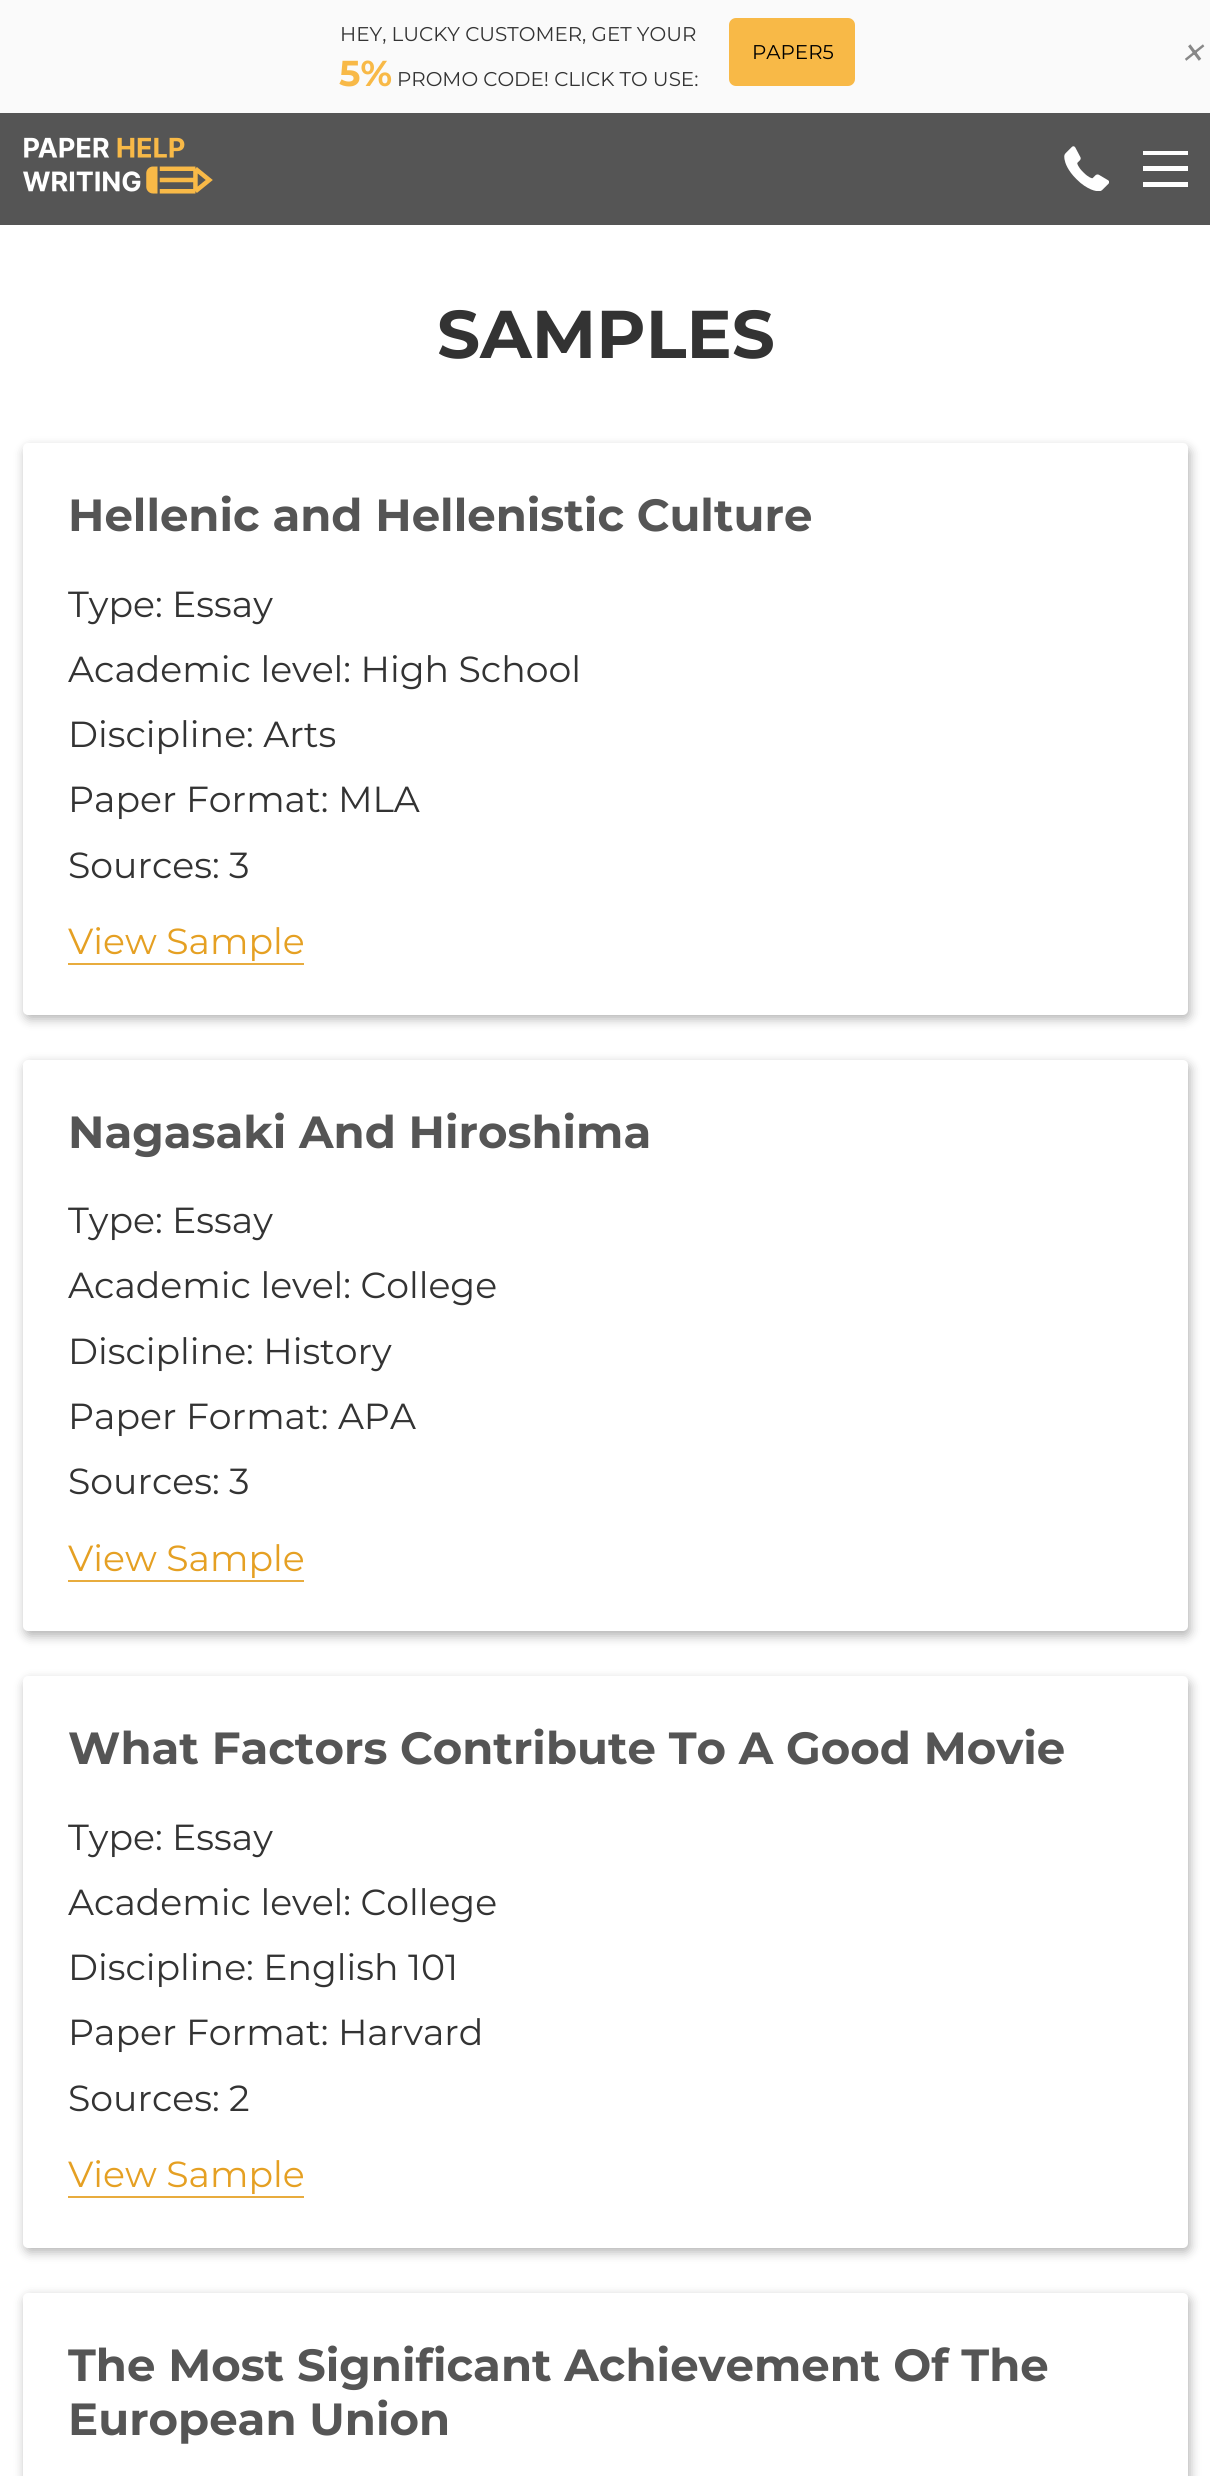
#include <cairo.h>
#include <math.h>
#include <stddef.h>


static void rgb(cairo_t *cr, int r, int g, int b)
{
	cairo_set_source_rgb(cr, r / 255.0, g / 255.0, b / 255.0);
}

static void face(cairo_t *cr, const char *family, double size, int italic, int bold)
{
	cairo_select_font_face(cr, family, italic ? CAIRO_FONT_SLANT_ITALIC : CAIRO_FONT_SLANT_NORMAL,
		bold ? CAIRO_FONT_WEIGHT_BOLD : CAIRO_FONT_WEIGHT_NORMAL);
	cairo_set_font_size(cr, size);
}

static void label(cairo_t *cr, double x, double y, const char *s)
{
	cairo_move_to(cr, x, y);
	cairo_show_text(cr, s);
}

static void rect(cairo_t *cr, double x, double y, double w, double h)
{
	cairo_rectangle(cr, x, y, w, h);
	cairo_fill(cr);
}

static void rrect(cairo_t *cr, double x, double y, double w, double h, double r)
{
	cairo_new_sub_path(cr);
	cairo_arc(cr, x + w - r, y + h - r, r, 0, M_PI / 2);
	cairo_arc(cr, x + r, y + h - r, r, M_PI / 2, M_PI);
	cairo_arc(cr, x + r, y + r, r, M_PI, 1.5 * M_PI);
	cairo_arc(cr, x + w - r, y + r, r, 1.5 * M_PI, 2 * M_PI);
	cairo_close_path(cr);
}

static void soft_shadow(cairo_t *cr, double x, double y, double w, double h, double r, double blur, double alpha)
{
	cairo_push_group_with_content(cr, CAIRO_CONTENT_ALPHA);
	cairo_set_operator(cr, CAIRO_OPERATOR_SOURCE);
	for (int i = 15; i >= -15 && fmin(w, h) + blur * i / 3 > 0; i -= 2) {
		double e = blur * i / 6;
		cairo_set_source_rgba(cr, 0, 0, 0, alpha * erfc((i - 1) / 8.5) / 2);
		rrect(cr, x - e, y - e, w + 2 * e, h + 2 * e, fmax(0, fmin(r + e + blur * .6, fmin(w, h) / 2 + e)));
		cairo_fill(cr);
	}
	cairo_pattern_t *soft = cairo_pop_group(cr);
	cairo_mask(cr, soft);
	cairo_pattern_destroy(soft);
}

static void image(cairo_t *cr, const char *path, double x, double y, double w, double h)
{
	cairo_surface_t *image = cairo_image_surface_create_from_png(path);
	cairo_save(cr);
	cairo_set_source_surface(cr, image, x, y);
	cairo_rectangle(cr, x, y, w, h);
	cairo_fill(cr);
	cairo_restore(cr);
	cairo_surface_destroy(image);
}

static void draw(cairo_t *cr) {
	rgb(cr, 255, 255, 255);
	cairo_paint(cr);
	rgb(cr, 250, 250, 250);
	rect(cr, 0, 0, 1210, 113);
	face(cr, "Montserrat", 19.9, 0, 0);
	rgb(cr, 51, 51, 51);
	label(cr, 340, 41, "HEY, LUCKY CUSTOMER, GET YOUR");
	face(cr, "Montserrat", 36, 0, 1);
	rgb(cr, 248, 185, 71);
	label(cr, 339, 86, "5%");
	face(cr, "Montserrat", 19.9, 0, 0);
	rgb(cr, 51, 51, 51);
	label(cr, 397, 86, "PROMO CODE! CLICK TO USE:");
	rgb(cr, 248, 185, 71);
	rrect(cr, 729, 18, 126, 68, 7);
	cairo_fill(cr);
	rgb(cr, 0, 0, 0);
	label(cr, 752, 59, "PAPER5");
	face(cr, "Montserrat", 47, 1, 0);
	rgb(cr, 136, 136, 136);
	label(cr, 1177, 69, "×");
	rgb(cr, 85, 85, 85);
	rect(cr, 0, 113, 1210, 112);
	image(cr, "image0.png", 23, 137, 190, 57);
	image(cr, "image1.png", 1064, 146, 45, 45);
	rgb(cr, 255, 255, 255);
	cairo_new_path(cr);
	cairo_move_to(cr, 1143, 187);
	cairo_line_to(cr, 1143, 182);
	cairo_line_to(cr, 1188, 182);
	cairo_line_to(cr, 1188, 187);
	cairo_close_path(cr);
	cairo_move_to(cr, 1143, 166);
	cairo_line_to(cr, 1188, 166);
	cairo_line_to(cr, 1188, 171);
	cairo_line_to(cr, 1143, 171);
	cairo_close_path(cr);
	cairo_move_to(cr, 1143, 151);
	cairo_line_to(cr, 1188, 151);
	cairo_line_to(cr, 1188, 155);
	cairo_line_to(cr, 1143, 155);
	cairo_close_path(cr);
	cairo_fill(cr);
	face(cr, "Montserrat", 67.5, 0, 1);
	rgb(cr, 51, 51, 51);
	label(cr, 437, 358, "SAMPLES");
	rgb(cr, 0, 0, 0);
	soft_shadow(cr, 25, 448, 1165, 571, 5, 5.5, 0.3);
	rgb(cr, 255, 255, 255);
	rrect(cr, 23, 443, 1165, 572, 5);
	cairo_fill(cr);
	face(cr, "Montserrat", 45.05, 0, 1);
	rgb(cr, 85, 85, 85);
	label(cr, 68, 531, "Hellenic and Hellenistic Culture");
	face(cr, "Montserrat", 36.25, 0, 0);
	rgb(cr, 51, 51, 51);
	label(cr, 68, 617, "Type: Essay");
	label(cr, 68, 682, "Academic level: High School");
	label(cr, 68, 747, "Discipline: Arts");
	label(cr, 68, 812, "Paper Format: MLA");
	label(cr, 68, 878, "Sources: 3");
	rgb(cr, 229, 160, 35);
	label(cr, 68, 954, "View Sample");
	rgb(cr, 232, 172, 62);
	rect(cr, 68, 963, 236, 2);
	rgb(cr, 0, 0, 0);
	soft_shadow(cr, 25, 1064, 1165, 572, 5, 5.5, 0.3);
	rgb(cr, 255, 255, 255);
	rrect(cr, 23, 1060, 1165, 571, 5);
	cairo_fill(cr);
	face(cr, "Montserrat", 45.05, 0, 1);
	rgb(cr, 85, 85, 85);
	label(cr, 68, 1148, "Nagasaki And Hiroshima");
	face(cr, "Montserrat", 36.25, 0, 0);
	rgb(cr, 51, 51, 51);
	label(cr, 68, 1233, "Type: Essay");
	label(cr, 68, 1298, "Academic level: College");
	label(cr, 68, 1364, "Discipline: History");
	label(cr, 68, 1429, "Paper Format: APA");
	label(cr, 68, 1494, "Sources: 3");
	rgb(cr, 229, 160, 35);
	label(cr, 68, 1571, "View Sample");
	rgb(cr, 232, 172, 62);
	rect(cr, 68, 1580, 236, 2);
	rgb(cr, 0, 0, 0);
	soft_shadow(cr, 25, 1681, 1165, 571, 5, 5.5, 0.3);
	rgb(cr, 255, 255, 255);
	rrect(cr, 23, 1676, 1165, 572, 5);
	cairo_fill(cr);
	face(cr, "Montserrat", 45.05, 0, 1);
	rgb(cr, 85, 85, 85);
	label(cr, 68, 1764, "What Factors Contribute To A Good Movie");
	face(cr, "Montserrat", 36.25, 0, 0);
	rgb(cr, 51, 51, 51);
	label(cr, 68, 1850, "Type: Essay");
	label(cr, 68, 1915, "Academic level: College");
	label(cr, 68, 1980, "Discipline: English 101");
	label(cr, 68, 2045, "Paper Format: Harvard");
	label(cr, 68, 2111, "Sources: 2");
	rgb(cr, 229, 160, 35);
	label(cr, 68, 2187, "View Sample");
	rgb(cr, 232, 172, 62);
	rect(cr, 68, 2196, 236, 2);
	rgb(cr, 0, 0, 0);
	soft_shadow(cr, 25, 2297, 1165, 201, 5, 5.5, 0.3);
	rgb(cr, 255, 255, 255);
	rrect(cr, 23, 2293, 1165, 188, 5);
	cairo_fill(cr);
	face(cr, "Montserrat", 45.05, 0, 1);
	rgb(cr, 85, 85, 85);
	label(cr, 68, 2381, "The Most Significant Achievement Of The");
	label(cr, 68, 2435, "European Union");
}

int main(void) {
	cairo_surface_t *surface = cairo_image_surface_create(CAIRO_FORMAT_RGB24, 1210, 2476);
	cairo_t *cr = cairo_create(surface);
	cairo_font_options_t *options = cairo_font_options_create();
	cairo_font_options_set_hint_metrics(options, CAIRO_HINT_METRICS_OFF);
	cairo_font_options_set_hint_style(options, CAIRO_HINT_STYLE_NONE);
	cairo_set_font_options(cr, options);
	cairo_set_miter_limit(cr, 4);
	draw(cr);
	cairo_surface_write_to_png(surface, "render.png");
	cairo_font_options_destroy(options);
	cairo_destroy(cr);
	cairo_surface_destroy(surface);
	return 0;
}
